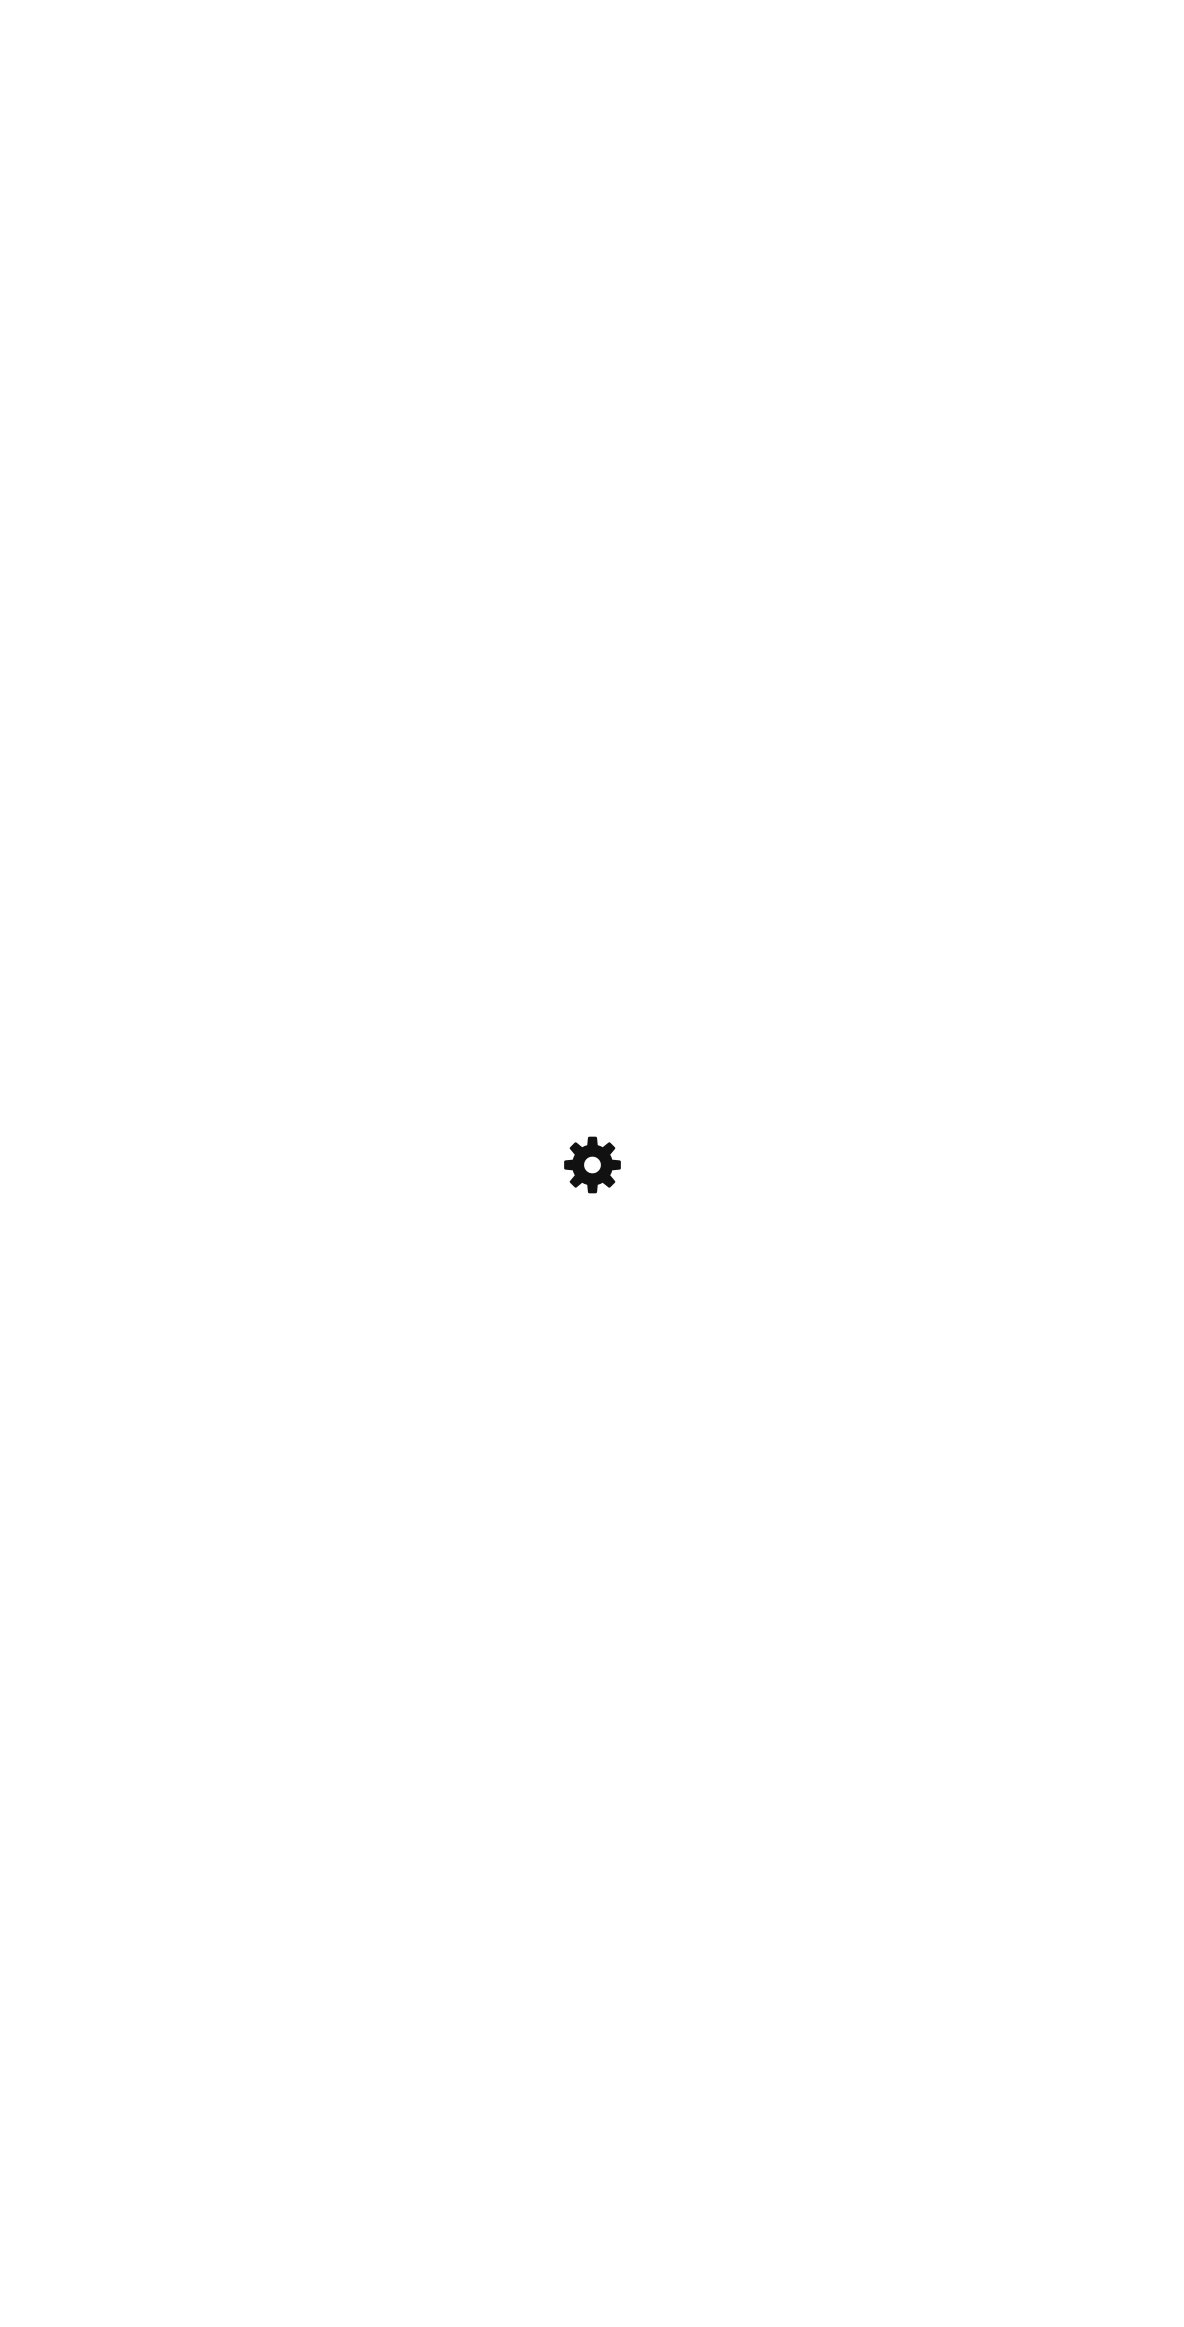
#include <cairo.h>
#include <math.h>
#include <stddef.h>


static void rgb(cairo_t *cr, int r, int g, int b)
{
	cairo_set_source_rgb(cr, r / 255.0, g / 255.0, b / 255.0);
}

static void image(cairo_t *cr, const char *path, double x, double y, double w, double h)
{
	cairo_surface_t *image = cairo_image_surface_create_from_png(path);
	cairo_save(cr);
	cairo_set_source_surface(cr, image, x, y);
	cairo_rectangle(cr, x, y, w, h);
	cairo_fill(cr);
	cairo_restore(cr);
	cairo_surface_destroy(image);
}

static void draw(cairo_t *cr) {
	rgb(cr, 255, 255, 255);
	cairo_paint(cr);
	image(cr, "image0.png", 564, 1136, 57, 58);
}

int main(void) {
	cairo_surface_t *surface = cairo_image_surface_create(CAIRO_FORMAT_RGB24, 1184, 2327);
	cairo_t *cr = cairo_create(surface);
	cairo_font_options_t *options = cairo_font_options_create();
	cairo_font_options_set_hint_metrics(options, CAIRO_HINT_METRICS_OFF);
	cairo_font_options_set_hint_style(options, CAIRO_HINT_STYLE_NONE);
	cairo_set_font_options(cr, options);
	cairo_set_miter_limit(cr, 4);
	draw(cr);
	cairo_surface_write_to_png(surface, "render.png");
	cairo_font_options_destroy(options);
	cairo_destroy(cr);
	cairo_surface_destroy(surface);
	return 0;
}
